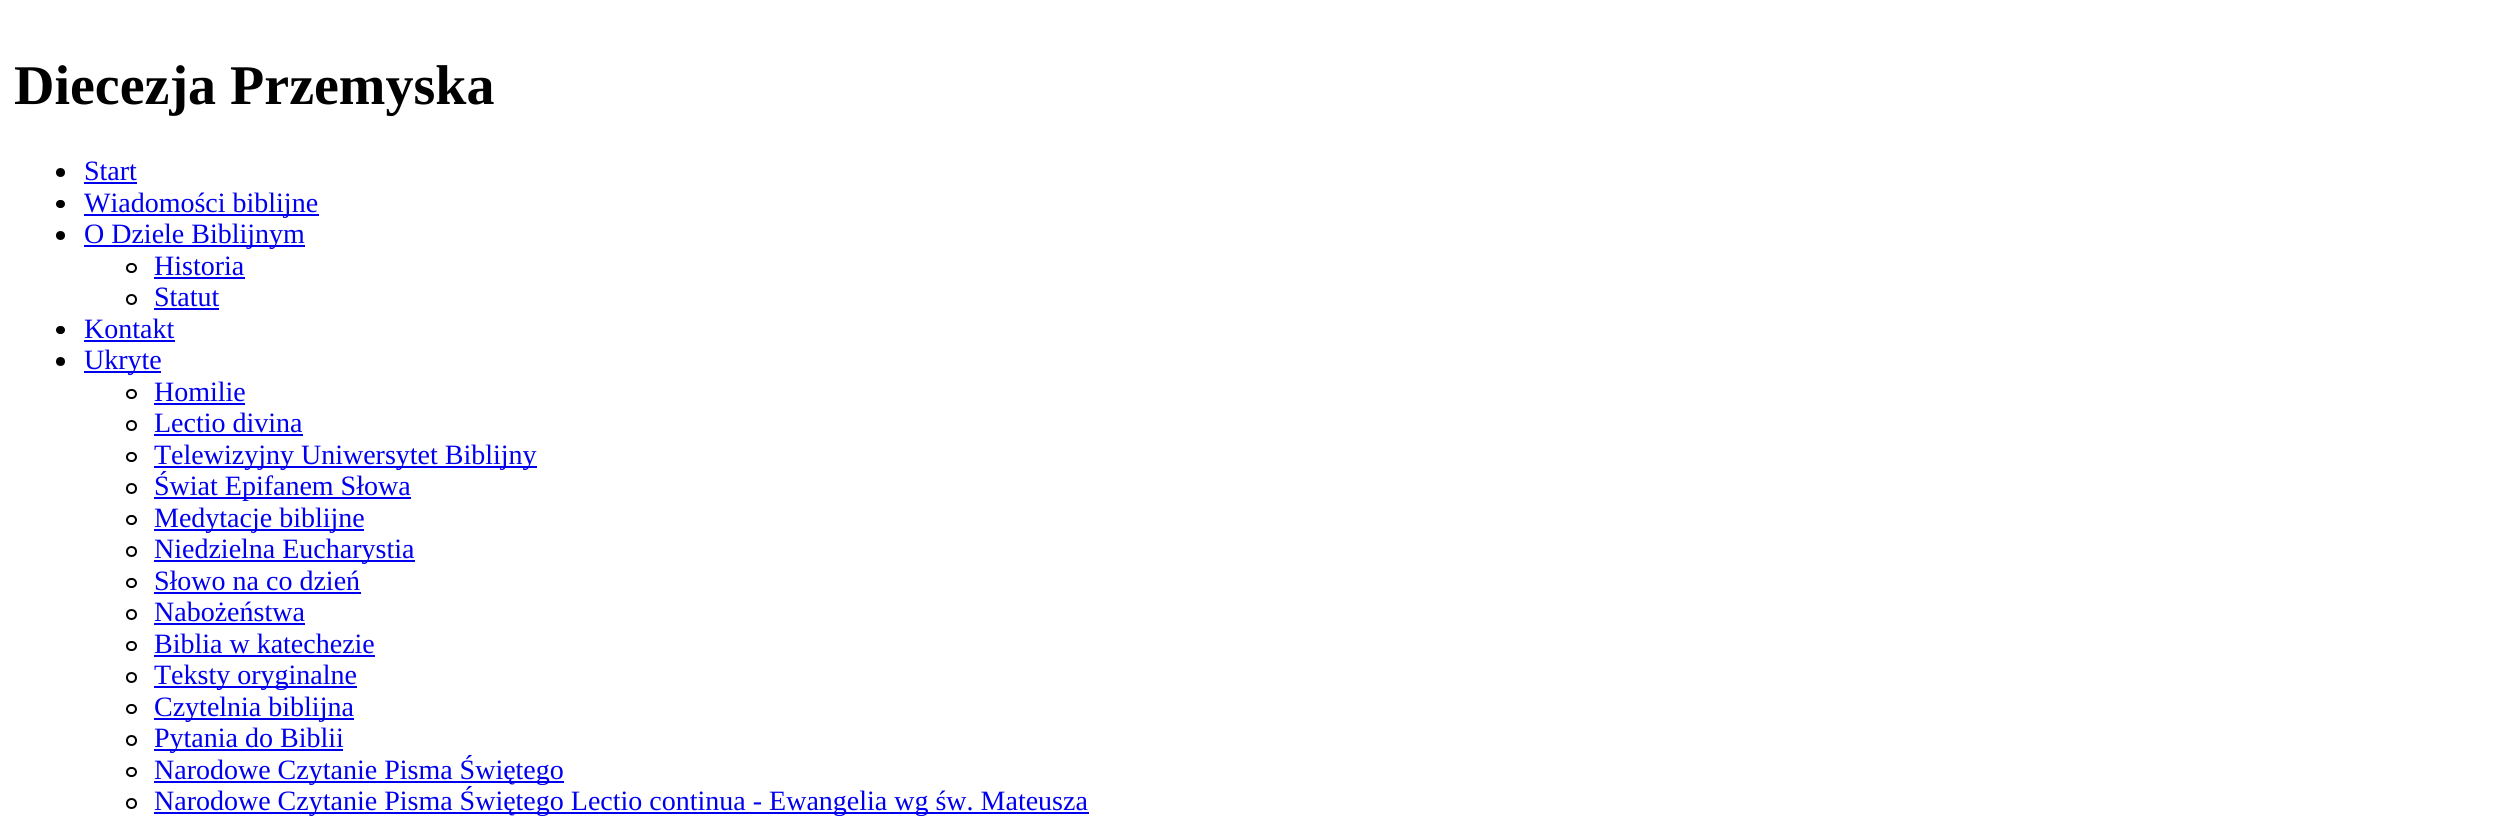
#include <cairo.h>
#include <math.h>
#include <stddef.h>


static void rgb(cairo_t *cr, int r, int g, int b)
{
	cairo_set_source_rgb(cr, r / 255.0, g / 255.0, b / 255.0);
}

static void face(cairo_t *cr, const char *family, double size, int italic, int bold)
{
	cairo_select_font_face(cr, family, italic ? CAIRO_FONT_SLANT_ITALIC : CAIRO_FONT_SLANT_NORMAL,
		bold ? CAIRO_FONT_WEIGHT_BOLD : CAIRO_FONT_WEIGHT_NORMAL);
	cairo_set_font_size(cr, size);
}

static void label(cairo_t *cr, double x, double y, const char *s)
{
	cairo_move_to(cr, x, y);
	cairo_show_text(cr, s);
}

static void rect(cairo_t *cr, double x, double y, double w, double h)
{
	cairo_rectangle(cr, x, y, w, h);
	cairo_fill(cr);
}

static void rrect(cairo_t *cr, double x, double y, double w, double h, double r)
{
	cairo_new_sub_path(cr);
	cairo_arc(cr, x + w - r, y + h - r, r, 0, M_PI / 2);
	cairo_arc(cr, x + r, y + h - r, r, M_PI / 2, M_PI);
	cairo_arc(cr, x + r, y + r, r, M_PI, 1.5 * M_PI);
	cairo_arc(cr, x + w - r, y + r, r, 1.5 * M_PI, 2 * M_PI);
	cairo_close_path(cr);
}

static void draw(cairo_t *cr) {
	rgb(cr, 255, 255, 255);
	cairo_paint(cr);
	face(cr, "Liberation Serif", 56, 0, 1);
	rgb(cr, 0, 0, 0);
	label(cr, 14, 104, "Diecezja Przemyska");
	cairo_new_path(cr);
	cairo_arc(cr, 60.5, 172.5, 4.5, 0, 2 * M_PI);
	cairo_fill(cr);
	face(cr, "Liberation Serif", 28, 0, 0);
	rgb(cr, 0, 0, 238);
	label(cr, 84, 180, "Start");
	rect(cr, 84, 182, 53, 2);
	rgb(cr, 0, 0, 0);
	rrect(cr, 56, 200, 9, 8, 4);
	cairo_fill(cr);
	rgb(cr, 0, 0, 238);
	rect(cr, 84, 214, 235, 2);
	label(cr, 84, 212, "Wiadomości biblijne");
	rgb(cr, 0, 0, 0);
	cairo_new_path(cr);
	cairo_arc(cr, 60.5, 235.5, 4.5, 0, 2 * M_PI);
	cairo_fill(cr);
	rgb(cr, 0, 0, 238);
	rect(cr, 84, 245, 221, 2);
	label(cr, 84, 243, "O Dziele Biblijnym");
	rrect(cr, 127, 264, 9, 8, 4);
	rgb(cr, 0, 0, 0);
	cairo_stroke(cr);
	rgb(cr, 0, 0, 238);
	label(cr, 154, 275, "Historia");
	rect(cr, 154, 277, 91, 2);
	cairo_new_path(cr);
	cairo_arc(cr, 131.5, 299.5, 4.5, 0, 2 * M_PI);
	rgb(cr, 0, 0, 0);
	cairo_stroke(cr);
	rgb(cr, 0, 0, 238);
	label(cr, 154, 306, "Statut");
	rect(cr, 154, 308, 65, 2);
	rgb(cr, 0, 0, 0);
	rrect(cr, 56, 326, 9, 8, 4);
	cairo_fill(cr);
	rgb(cr, 0, 0, 238);
	label(cr, 84, 338, "Kontakt");
	rect(cr, 84, 340, 91, 2);
	rgb(cr, 0, 0, 0);
	cairo_new_path(cr);
	cairo_arc(cr, 60.5, 361.5, 4.5, 0, 2 * M_PI);
	cairo_fill(cr);
	rgb(cr, 0, 0, 238);
	rect(cr, 84, 371, 77, 2);
	label(cr, 84, 369, "Ukryte");
	rrect(cr, 127, 390, 9, 8, 4);
	rgb(cr, 0, 0, 0);
	cairo_stroke(cr);
	rgb(cr, 0, 0, 238);
	label(cr, 154, 401, "Homilie");
	rect(cr, 154, 403, 91, 2);
	cairo_new_path(cr);
	cairo_arc(cr, 131.5, 425.5, 4.5, 0, 2 * M_PI);
	rgb(cr, 0, 0, 0);
	cairo_stroke(cr);
	rgb(cr, 0, 0, 238);
	label(cr, 154, 432, "Lectio divina");
	rect(cr, 154, 434, 149, 2);
	rrect(cr, 127, 453, 9, 8, 4);
	rgb(cr, 0, 0, 0);
	cairo_stroke(cr);
	rgb(cr, 0, 0, 238);
	rect(cr, 154, 466, 383, 2);
	label(cr, 154, 464, "Telewizyjny Uniwersytet Biblijny");
	cairo_new_path(cr);
	cairo_arc(cr, 131.5, 488.5, 4.5, 0, 2 * M_PI);
	rgb(cr, 0, 0, 0);
	cairo_stroke(cr);
	rgb(cr, 0, 0, 238);
	rect(cr, 154, 497, 257, 2);
	label(cr, 154, 495, "Świat Epifanem Słowa");
	rrect(cr, 127, 516, 9, 8, 4);
	rgb(cr, 0, 0, 0);
	cairo_stroke(cr);
	rgb(cr, 0, 0, 238);
	rect(cr, 154, 529, 210, 2);
	label(cr, 154, 527, "Medytacje biblijne");
	cairo_new_path(cr);
	cairo_arc(cr, 131.5, 551.5, 4.5, 0, 2 * M_PI);
	rgb(cr, 0, 0, 0);
	cairo_stroke(cr);
	rgb(cr, 0, 0, 238);
	rect(cr, 154, 560, 261, 2);
	label(cr, 154, 558, "Niedzielna Eucharystia");
	rrect(cr, 127, 579, 9, 8, 4);
	rgb(cr, 0, 0, 0);
	cairo_stroke(cr);
	rgb(cr, 0, 0, 238);
	label(cr, 154, 590, "Słowo na co dzień");
	rect(cr, 154, 592, 207, 2);
	cairo_new_path(cr);
	cairo_arc(cr, 131.5, 614.5, 4.5, 0, 2 * M_PI);
	rgb(cr, 0, 0, 0);
	cairo_stroke(cr);
	rgb(cr, 0, 0, 238);
	label(cr, 154, 621, "Nabożeństwa");
	rect(cr, 154, 623, 151, 2);
	rrect(cr, 127, 642, 9, 8, 4);
	rgb(cr, 0, 0, 0);
	cairo_stroke(cr);
	rgb(cr, 0, 0, 238);
	label(cr, 154, 653, "Biblia w katechezie");
	rect(cr, 154, 655, 221, 2);
	cairo_new_path(cr);
	cairo_arc(cr, 131.5, 677.5, 4.5, 0, 2 * M_PI);
	rgb(cr, 0, 0, 0);
	cairo_stroke(cr);
	rgb(cr, 0, 0, 238);
	rect(cr, 154, 686, 203, 2);
	label(cr, 154, 684, "Teksty oryginalne");
	rrect(cr, 127, 705, 9, 8, 4);
	rgb(cr, 0, 0, 0);
	cairo_stroke(cr);
	rgb(cr, 0, 0, 238);
	rect(cr, 154, 718, 200, 2);
	label(cr, 154, 716, "Czytelnia biblijna");
	cairo_new_path(cr);
	cairo_arc(cr, 131.5, 740.5, 4.5, 0, 2 * M_PI);
	rgb(cr, 0, 0, 0);
	cairo_stroke(cr);
	rgb(cr, 0, 0, 238);
	rect(cr, 154, 749, 189, 2);
	label(cr, 154, 747, "Pytania do Biblii");
	rrect(cr, 127, 768, 9, 8, 4);
	rgb(cr, 0, 0, 0);
	cairo_stroke(cr);
	rgb(cr, 0, 0, 238);
	rect(cr, 154, 781, 410, 2);
	label(cr, 154, 779, "Narodowe Czytanie Pisma Świętego");
	cairo_new_path(cr);
	cairo_arc(cr, 131.5, 803.5, 4.5, 0, 2 * M_PI);
	rgb(cr, 0, 0, 0);
	cairo_stroke(cr);
	rgb(cr, 0, 0, 238);
	rect(cr, 154, 812, 935, 2);
	label(cr, 154, 810, "Narodowe Czytanie Pisma Świętego Lectio continua - Ewangelia wg św. Mateusza");
}

int main(void) {
	cairo_surface_t *surface = cairo_image_surface_create(CAIRO_FORMAT_RGB24, 2494, 840);
	cairo_t *cr = cairo_create(surface);
	cairo_font_options_t *options = cairo_font_options_create();
	cairo_font_options_set_hint_metrics(options, CAIRO_HINT_METRICS_OFF);
	cairo_font_options_set_hint_style(options, CAIRO_HINT_STYLE_NONE);
	cairo_set_font_options(cr, options);
	cairo_set_miter_limit(cr, 4);
	draw(cr);
	cairo_surface_write_to_png(surface, "render.png");
	cairo_font_options_destroy(options);
	cairo_destroy(cr);
	cairo_surface_destroy(surface);
	return 0;
}
